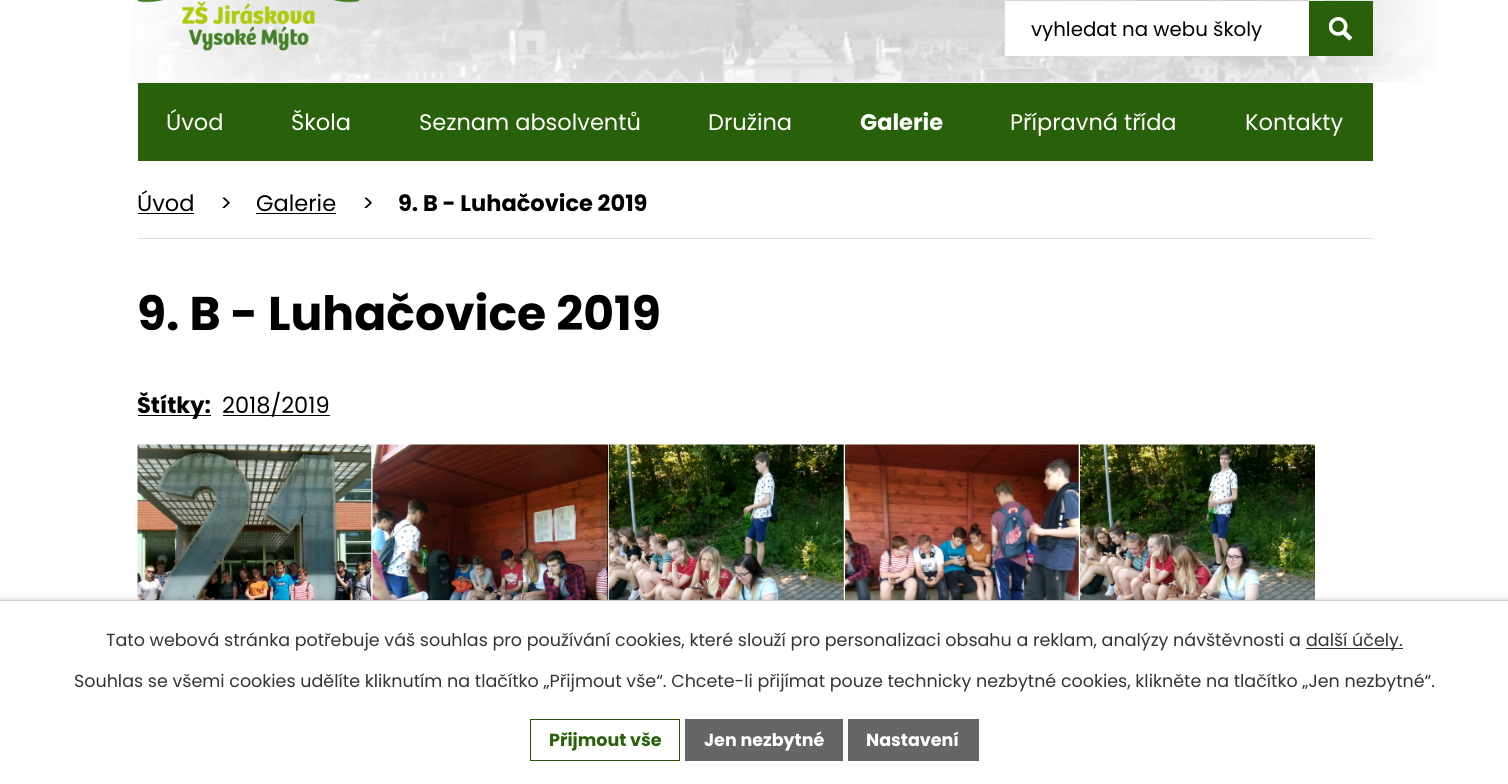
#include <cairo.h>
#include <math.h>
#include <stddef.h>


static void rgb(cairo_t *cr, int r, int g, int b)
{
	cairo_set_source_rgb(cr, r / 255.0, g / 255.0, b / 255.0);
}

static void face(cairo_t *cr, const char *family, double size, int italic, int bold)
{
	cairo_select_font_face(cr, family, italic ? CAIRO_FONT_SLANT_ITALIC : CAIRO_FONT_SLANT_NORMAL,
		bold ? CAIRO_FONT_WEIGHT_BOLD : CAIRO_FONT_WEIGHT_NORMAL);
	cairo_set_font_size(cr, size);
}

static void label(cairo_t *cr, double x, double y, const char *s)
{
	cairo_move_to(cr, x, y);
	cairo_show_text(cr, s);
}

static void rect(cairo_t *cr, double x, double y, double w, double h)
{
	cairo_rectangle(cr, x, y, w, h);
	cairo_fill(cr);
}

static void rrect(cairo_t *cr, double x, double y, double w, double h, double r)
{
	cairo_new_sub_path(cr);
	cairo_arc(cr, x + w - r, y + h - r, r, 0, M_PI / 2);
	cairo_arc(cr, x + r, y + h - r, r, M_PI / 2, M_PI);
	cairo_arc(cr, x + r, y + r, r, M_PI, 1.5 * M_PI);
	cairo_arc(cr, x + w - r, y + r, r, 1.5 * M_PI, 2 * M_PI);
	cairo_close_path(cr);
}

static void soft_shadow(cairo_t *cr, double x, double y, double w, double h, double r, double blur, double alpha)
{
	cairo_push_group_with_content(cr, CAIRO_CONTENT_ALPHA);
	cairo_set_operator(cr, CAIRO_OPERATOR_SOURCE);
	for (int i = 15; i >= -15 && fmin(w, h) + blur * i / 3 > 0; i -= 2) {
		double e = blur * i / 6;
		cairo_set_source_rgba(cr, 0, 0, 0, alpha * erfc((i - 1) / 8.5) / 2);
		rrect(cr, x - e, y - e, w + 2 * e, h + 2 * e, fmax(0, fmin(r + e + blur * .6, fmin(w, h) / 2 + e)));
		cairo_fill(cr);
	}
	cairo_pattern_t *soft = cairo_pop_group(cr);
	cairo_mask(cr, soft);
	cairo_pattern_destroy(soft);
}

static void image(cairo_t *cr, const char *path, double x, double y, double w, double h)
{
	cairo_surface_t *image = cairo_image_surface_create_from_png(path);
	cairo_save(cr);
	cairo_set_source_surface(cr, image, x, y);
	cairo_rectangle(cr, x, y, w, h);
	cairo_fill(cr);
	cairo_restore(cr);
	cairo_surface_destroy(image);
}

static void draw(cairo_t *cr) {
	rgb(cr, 255, 255, 255);
	cairo_paint(cr);
	image(cr, "image0.png", 130, 0, 1306, 82);
	image(cr, "image1.png", 137, 0, 223, 51);
	rgb(cr, 255, 255, 255);
	rect(cr, 1005, 1, 304, 55);
	face(cr, "Poppins", 19.75, 0, 0);
	rgb(cr, 0, 0, 0);
	label(cr, 1031, 36, "vyhledat na webu školy");
	rgb(cr, 41, 97, 10);
	rect(cr, 1309, 1, 64, 55);
	image(cr, "image2.png", 1329, 17, 24, 24);
	rect(cr, 138, 83, 1235, 78);
	face(cr, "Poppins", 22.5, 0, 0);
	rgb(cr, 255, 255, 255);
	label(cr, 166, 130, "Úvod");
	label(cr, 291, 130, "Škola");
	label(cr, 419, 130, "Seznam absolventů");
	label(cr, 708, 130, "Družina");
	face(cr, "Poppins", 22.5, 0, 1);
	label(cr, 860, 130, "Galerie");
	face(cr, "Poppins", 22.5, 0, 0);
	label(cr, 1010, 130, "Přípravná třída");
	label(cr, 1245, 130, "Kontakty");
	rgb(cr, 224, 224, 224);
	rect(cr, 138, 238, 1235, 1);
	rgb(cr, 0, 0, 0);
	label(cr, 137, 211, "Úvod");
	rect(cr, 138, 213, 56, 1);
	label(cr, 220, 211, ">");
	label(cr, 256, 211, "Galerie");
	rect(cr, 256, 213, 80, 1);
	label(cr, 362, 211, ">");
	face(cr, "Poppins", 22.5, 0, 1);
	label(cr, 398, 211, "9. B - Luhačovice 2019");
	face(cr, "Poppins", 47.25, 0, 1);
	label(cr, 137, 330, "9. B - Luhačovice 2019");
	rect(cr, 138, 415, 73, 1);
	face(cr, "Poppins", 22.5, 0, 1);
	label(cr, 137, 413, "Štítky:");
	rect(cr, 223, 415, 107, 1);
	face(cr, "Poppins", 22.5, 0, 0);
	label(cr, 222, 413, "2018/2019");
	image(cr, "image3.png", 137, 444, 235, 156);
	rect(cr, 607, 445, 1, 155);
	image(cr, "image4.png", 372, 444, 236, 156);
	image(cr, "image5.png", 608, 444, 236, 156);
	image(cr, "image6.png", 845, 444, 234, 156);
	image(cr, "image7.png", 1080, 444, 235, 156);
	rgb(cr, 0, 0, 0);
	soft_shadow(cr, 0, 600, 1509, 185, 0, 3, 0.2);
	rgb(cr, 255, 255, 255);
	rect(cr, 0, 601, 1508, 183);
	rgb(cr, 204, 204, 204);
	rect(cr, 0, 600, 1508, 1);
	face(cr, "Poppins", 17.5, 0, 0);
	rgb(cr, 51, 51, 51);
	label(cr, 106, 646, "Tato webová stránka potřebuje váš souhlas pro používání cookies, které slouží pro personalizaci obsahu a reklam, analýzy návštěvnosti a");
	rect(cr, 1306, 648, 97, 1);
	label(cr, 1306, 646, "další účely.");
	label(cr, 74, 687, "Souhlas se všemi cookies udělíte kliknutím na tlačítko „Přijmout vše“. Chcete-li přijímat pouze technicky nezbytné cookies, klikněte na tlačítko „Jen nezbytné“.");
	cairo_rectangle(cr, 530.5, 719.5, 149, 41);
	rgb(cr, 44, 81, 15);
	cairo_set_line_width(cr, 1);
	cairo_stroke(cr);
	face(cr, "Poppins", 17.5, 0, 1);
	rgb(cr, 41, 97, 10);
	label(cr, 549, 746, "Přijmout vše");
	rgb(cr, 102, 102, 102);
	rect(cr, 685, 719, 158, 42);
	rgb(cr, 255, 255, 255);
	label(cr, 704, 746, "Jen nezbytné");
	rgb(cr, 102, 102, 102);
	rect(cr, 848, 719, 131, 42);
	rgb(cr, 255, 255, 255);
	label(cr, 866, 746, "Nastavení");
}

int main(void) {
	cairo_surface_t *surface = cairo_image_surface_create(CAIRO_FORMAT_RGB24, 1508, 784);
	cairo_t *cr = cairo_create(surface);
	cairo_font_options_t *options = cairo_font_options_create();
	cairo_font_options_set_hint_metrics(options, CAIRO_HINT_METRICS_OFF);
	cairo_font_options_set_hint_style(options, CAIRO_HINT_STYLE_NONE);
	cairo_set_font_options(cr, options);
	cairo_set_miter_limit(cr, 4);
	draw(cr);
	cairo_surface_write_to_png(surface, "render.png");
	cairo_font_options_destroy(options);
	cairo_destroy(cr);
	cairo_surface_destroy(surface);
	return 0;
}
